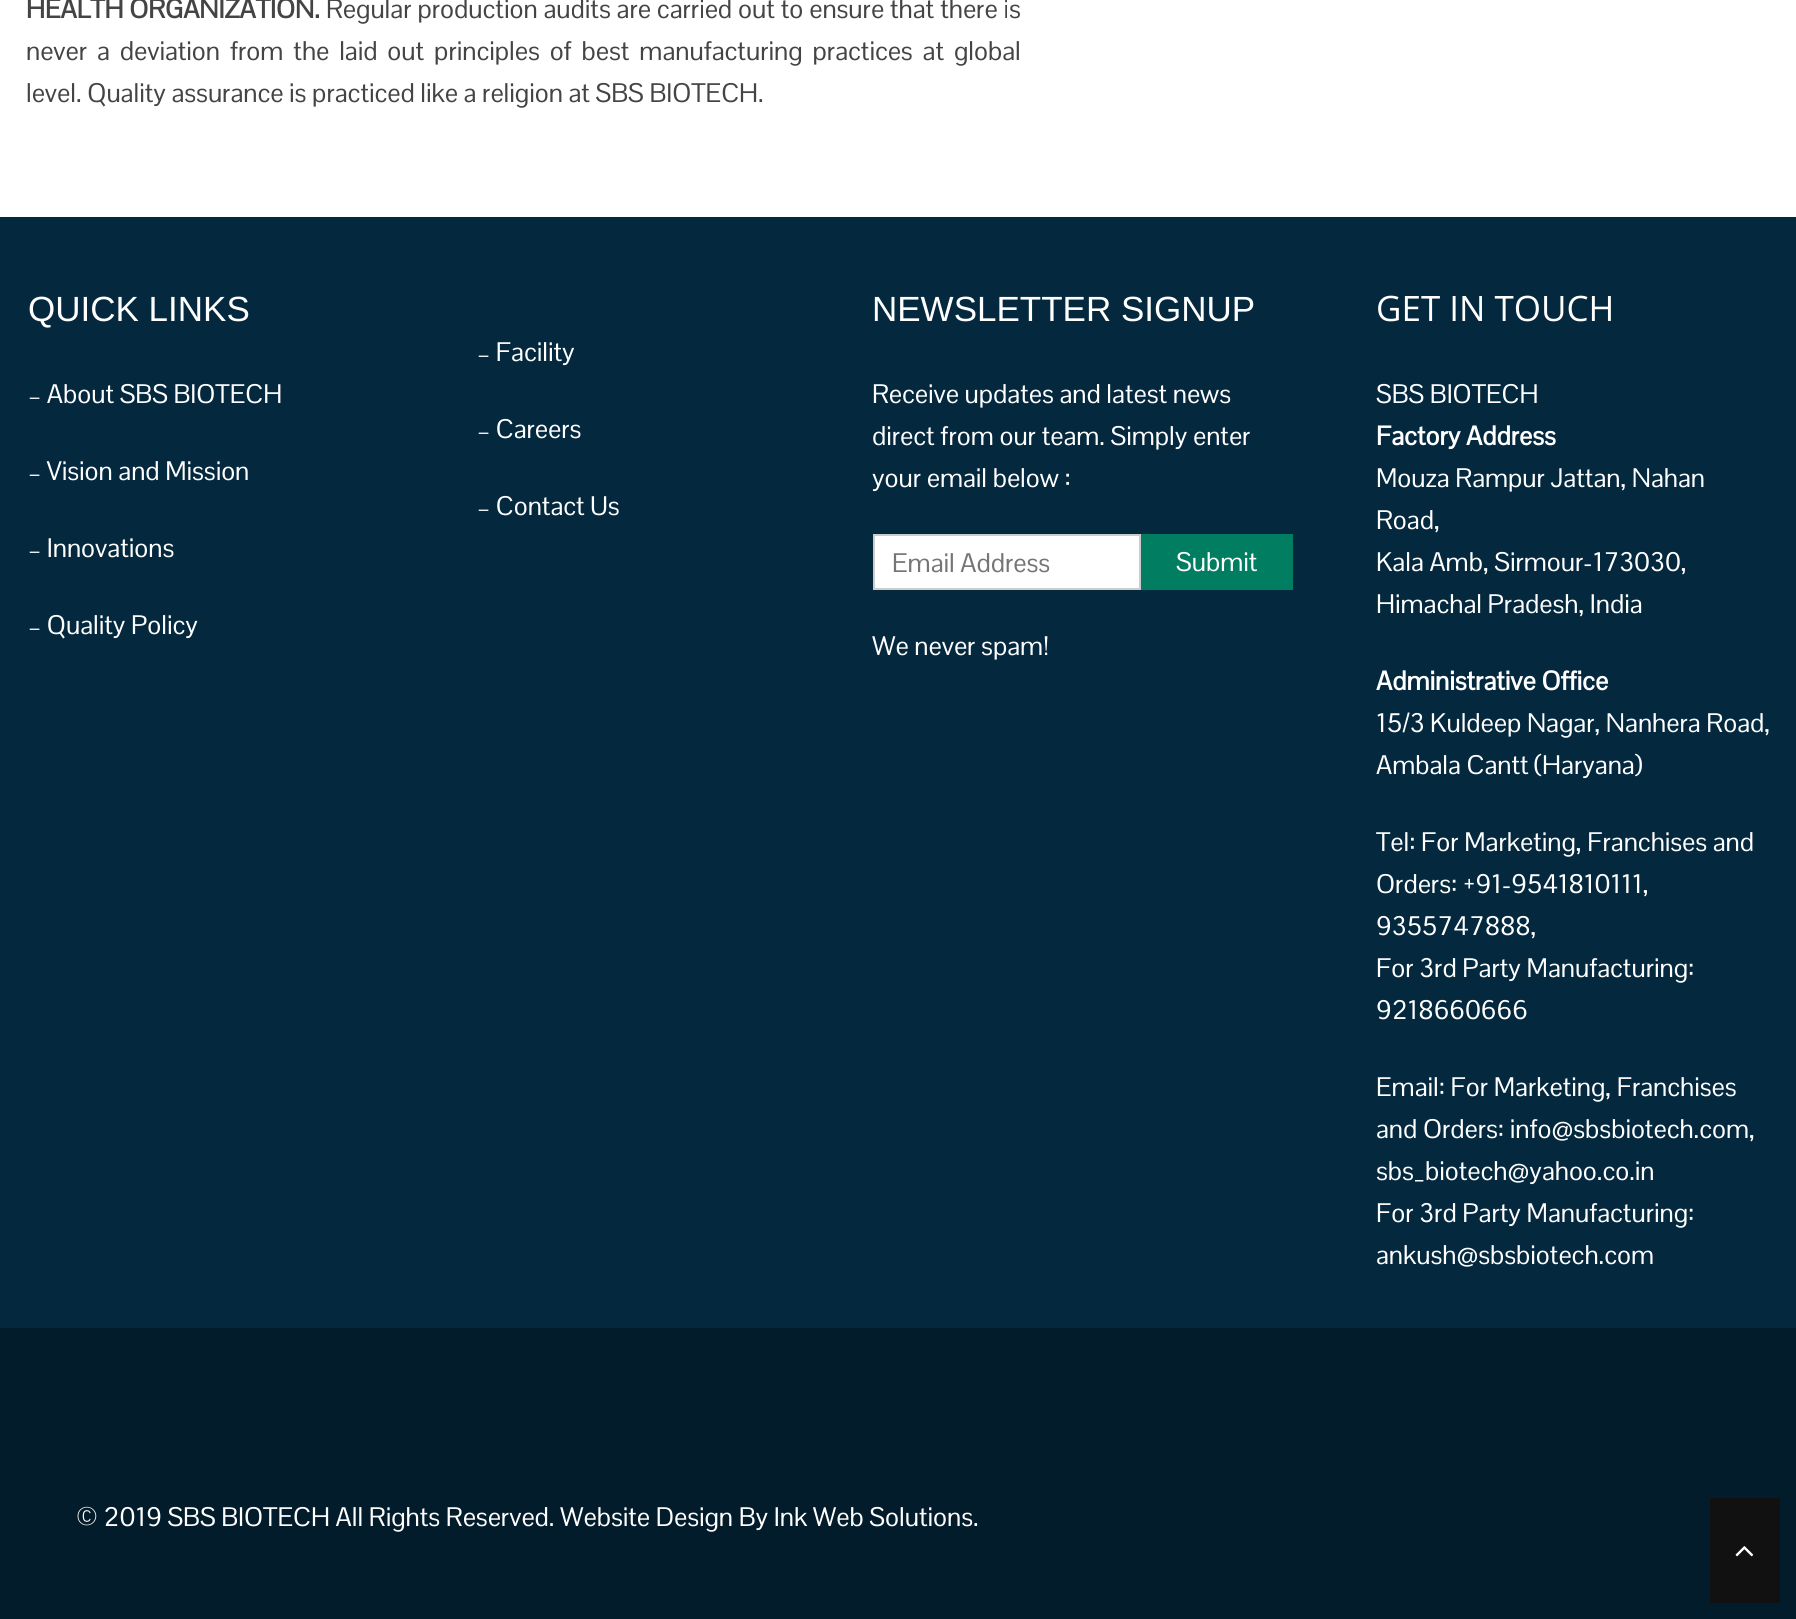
#include <cairo.h>
#include <math.h>
#include <stddef.h>


static void rgb(cairo_t *cr, int r, int g, int b)
{
	cairo_set_source_rgb(cr, r / 255.0, g / 255.0, b / 255.0);
}

static void face(cairo_t *cr, const char *family, double size, int italic, int bold)
{
	cairo_select_font_face(cr, family, italic ? CAIRO_FONT_SLANT_ITALIC : CAIRO_FONT_SLANT_NORMAL,
		bold ? CAIRO_FONT_WEIGHT_BOLD : CAIRO_FONT_WEIGHT_NORMAL);
	cairo_set_font_size(cr, size);
}

static void label(cairo_t *cr, double x, double y, const char *s)
{
	cairo_move_to(cr, x, y);
	cairo_show_text(cr, s);
}

static void tracked(cairo_t *cr, double x, double y, const char *s, double letter, double word)
{
	cairo_move_to(cr, x, y);
	while (*s) {
		char ch[5] = {0};
		int n = 0;
		do ch[n++] = *s++; while ((*s & 0xC0) == 0x80);
		cairo_show_text(cr, ch);
		cairo_rel_move_to(cr, letter + word * (*ch == ' '), 0);
	}
}

static void rect(cairo_t *cr, double x, double y, double w, double h)
{
	cairo_rectangle(cr, x, y, w, h);
	cairo_fill(cr);
}

static void image(cairo_t *cr, const char *path, double x, double y, double w, double h)
{
	cairo_surface_t *image = cairo_image_surface_create_from_png(path);
	cairo_save(cr);
	cairo_set_source_surface(cr, image, x, y);
	cairo_rectangle(cr, x, y, w, h);
	cairo_fill(cr);
	cairo_restore(cr);
	cairo_surface_destroy(image);
}

static void draw(cairo_t *cr) {
	rgb(cr, 255, 255, 255);
	cairo_paint(cr);
	face(cr, "Pontano Sans", 26.25, 0, 1);
	rgb(cr, 68, 68, 68);
	label(cr, 26, 18, "HEALTH ORGANIZATION.");
	face(cr, "Pontano Sans", 26.25, 0, 0);
	tracked(cr, 326, 18, "Regular production audits are carried out to ensure that there is", 0, 0.25);
	tracked(cr, 26, 60, "never a deviation from the laid out principles of best manufacturing practices at global", 0, 4.25);
	label(cr, 26, 102, "level. Quality assurance is practiced like a religion at SBS BIOTECH.");
	rgb(cr, 4, 40, 62);
	rect(cr, 0, 217, 1796, 1111);
	face(cr, "Liberation Sans", 35, 0, 0);
	rgb(cr, 255, 255, 255);
	label(cr, 28, 321, "QUICK LINKS");
	face(cr, "Pontano Sans", 26.25, 0, 0);
	label(cr, 28, 403, "– About SBS BIOTECH");
	label(cr, 28, 480, "– Vision and Mission");
	label(cr, 28, 557, "– Innovations");
	label(cr, 28, 634, "– Quality Policy");
	label(cr, 477, 361, "– Facility");
	label(cr, 477, 438, "– Careers");
	label(cr, 477, 515, "– Contact Us");
	face(cr, "Liberation Sans", 35, 0, 0);
	label(cr, 872, 321, "NEWSLETTER SIGNUP");
	face(cr, "Pontano Sans", 26.25, 0, 0);
	label(cr, 872, 403, "Receive updates and latest news");
	label(cr, 872, 445, "direct from our team. Simply enter");
	label(cr, 872, 487, "your email below :");
	cairo_rectangle(cr, 874, 535, 266, 54);
	cairo_fill_preserve(cr);
	rgb(cr, 204, 204, 204);
	cairo_stroke(cr);
	rgb(cr, 117, 117, 117);
	label(cr, 892, 572, "Email Address");
	rgb(cr, 1, 125, 98);
	rect(cr, 1141, 534, 152, 56);
	rgb(cr, 255, 255, 255);
	label(cr, 1176, 571, "Submit");
	label(cr, 872, 655, "We never spam!");
	face(cr, "Open Sans", 35, 0, 0);
	label(cr, 1376, 321, "GET IN TOUCH");
	face(cr, "Pontano Sans", 26.25, 0, 0);
	label(cr, 1376, 403, "SBS BIOTECH");
	face(cr, "Pontano Sans", 26.25, 0, 1);
	label(cr, 1376, 445, "Factory Address");
	face(cr, "Pontano Sans", 26.25, 0, 0);
	label(cr, 1376, 487, "Mouza Rampur Jattan, Nahan");
	label(cr, 1376, 529, "Road,");
	label(cr, 1376, 571, "Kala Amb, Sirmour-173030,");
	label(cr, 1376, 613, "Himachal Pradesh, India");
	face(cr, "Pontano Sans", 26.25, 0, 1);
	label(cr, 1376, 690, "Administrative Office");
	face(cr, "Pontano Sans", 26.25, 0, 0);
	label(cr, 1376, 732, "15/3 Kuldeep Nagar, Nanhera Road,");
	label(cr, 1376, 774, "Ambala Cantt (Haryana)");
	label(cr, 1376, 851, "Tel: For Marketing, Franchises and");
	label(cr, 1376, 893, "Orders: +91-9541810111,");
	label(cr, 1376, 935, "9355747888,");
	label(cr, 1376, 977, "For 3rd Party Manufacturing:");
	label(cr, 1376, 1019, "9218660666");
	label(cr, 1376, 1096, "Email: For Marketing, Franchises");
	label(cr, 1376, 1138, "and Orders: info@sbsbiotech.com,");
	label(cr, 1376, 1180, "sbs_biotech@yahoo.co.in");
	label(cr, 1376, 1222, "For 3rd Party Manufacturing:");
	label(cr, 1376, 1264, "ankush@sbsbiotech.com");
	rgb(cr, 3, 28, 43);
	rect(cr, 0, 1328, 1796, 291);
	rgb(cr, 255, 255, 255);
	label(cr, 76, 1526, "© 2019 SBS BIOTECH All Rights Reserved. Website Design By Ink Web Solutions.");
	rgb(cr, 17, 17, 17);
	rect(cr, 1710, 1498, 70, 105);
	image(cr, "image0.png", 1735, 1546, 19, 11);
}

int main(void) {
	cairo_surface_t *surface = cairo_image_surface_create(CAIRO_FORMAT_RGB24, 1796, 1619);
	cairo_t *cr = cairo_create(surface);
	cairo_font_options_t *options = cairo_font_options_create();
	cairo_font_options_set_hint_metrics(options, CAIRO_HINT_METRICS_OFF);
	cairo_font_options_set_hint_style(options, CAIRO_HINT_STYLE_NONE);
	cairo_set_font_options(cr, options);
	cairo_set_miter_limit(cr, 4);
	draw(cr);
	cairo_surface_write_to_png(surface, "render.png");
	cairo_font_options_destroy(options);
	cairo_destroy(cr);
	cairo_surface_destroy(surface);
	return 0;
}
